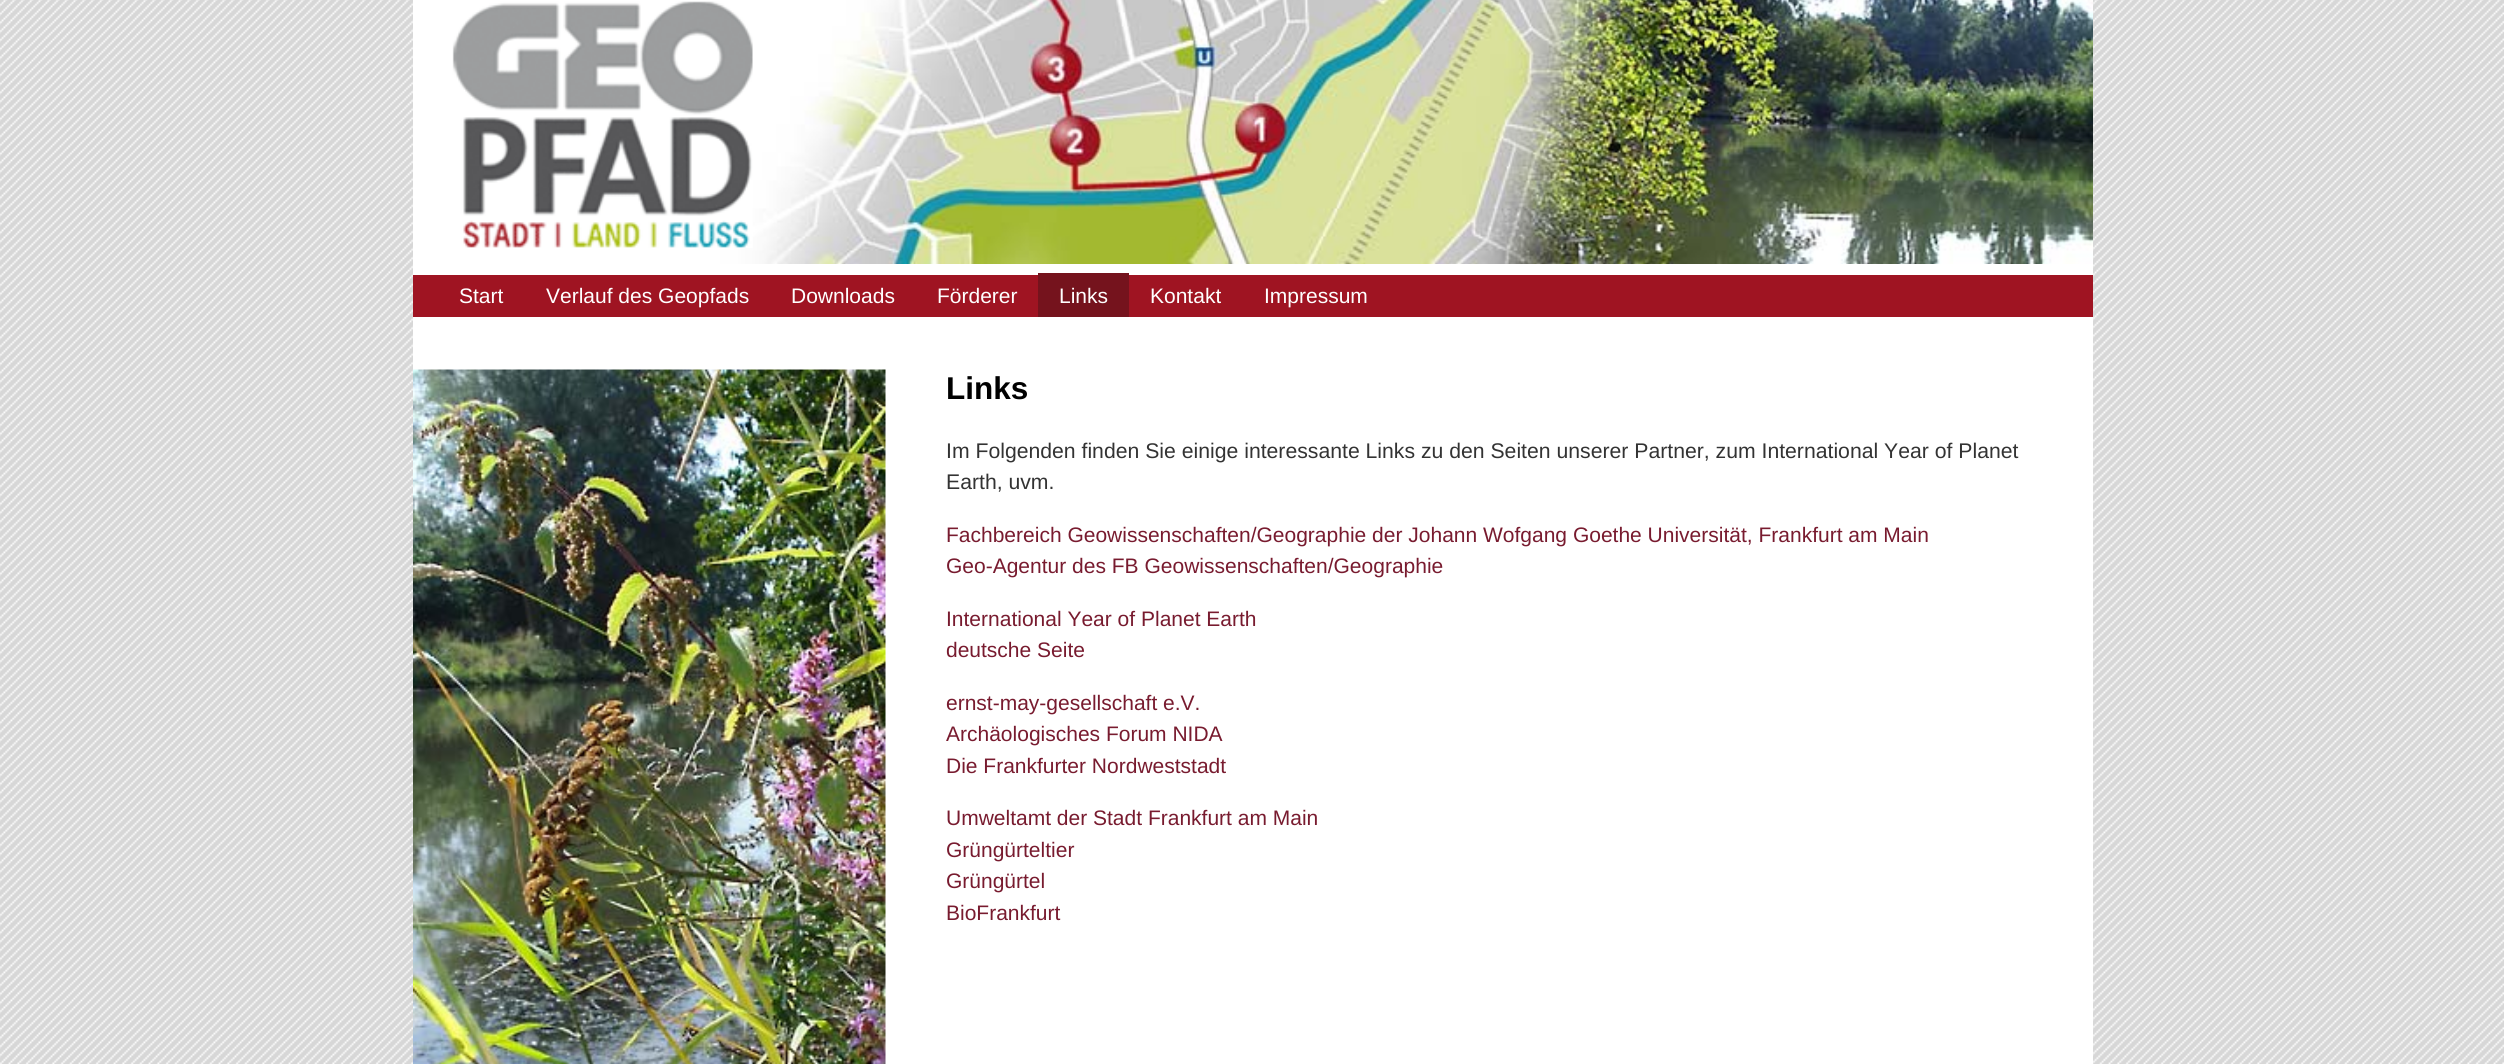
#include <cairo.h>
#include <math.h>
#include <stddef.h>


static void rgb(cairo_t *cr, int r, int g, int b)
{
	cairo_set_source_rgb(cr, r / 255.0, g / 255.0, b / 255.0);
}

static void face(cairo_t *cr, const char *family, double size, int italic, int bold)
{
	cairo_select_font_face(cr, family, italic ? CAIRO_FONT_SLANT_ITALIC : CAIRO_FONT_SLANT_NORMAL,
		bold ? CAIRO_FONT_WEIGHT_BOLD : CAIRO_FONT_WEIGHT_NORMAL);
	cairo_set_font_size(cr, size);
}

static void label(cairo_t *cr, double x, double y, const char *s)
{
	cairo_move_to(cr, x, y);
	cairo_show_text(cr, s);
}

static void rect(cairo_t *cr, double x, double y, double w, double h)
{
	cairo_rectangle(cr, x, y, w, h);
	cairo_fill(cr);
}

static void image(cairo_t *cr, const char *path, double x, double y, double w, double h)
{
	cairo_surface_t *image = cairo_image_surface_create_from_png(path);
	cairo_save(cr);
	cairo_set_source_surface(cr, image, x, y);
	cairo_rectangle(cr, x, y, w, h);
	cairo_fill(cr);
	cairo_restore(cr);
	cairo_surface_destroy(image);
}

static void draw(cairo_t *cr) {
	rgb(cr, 255, 255, 255);
	cairo_paint(cr);
	image(cr, "image0.png", 0, 0, 2504, 1064);
	rgb(cr, 255, 255, 255);
	rect(cr, 413, 317, 1680, 747);
	image(cr, "image1.png", 413, 0, 1680, 264);
	image(cr, "image2.png", 413, 1, 340, 247);
	rgb(cr, 159, 20, 34);
	rect(cr, 413, 275, 1680, 42);
	rgb(cr, 255, 255, 255);
	rect(cr, 413, 264, 1680, 11);
	face(cr, "Liberation Sans", 21, 0, 0);
	label(cr, 459, 303, "Start");
	label(cr, 546, 303, "Verlauf des Geopfads");
	label(cr, 791, 303, "Downloads");
	label(cr, 937, 303, "Förderer");
	rgb(cr, 117, 19, 29);
	rect(cr, 1038, 273, 91, 44);
	rgb(cr, 255, 255, 255);
	label(cr, 1059, 303, "Links");
	label(cr, 1150, 303, "Kontakt");
	label(cr, 1264, 303, "Impressum");
	image(cr, "image3.png", 413, 369, 473, 695);
	face(cr, "Liberation Sans", 31.5, 0, 1);
	rgb(cr, 0, 0, 0);
	label(cr, 946, 399, "Links");
	face(cr, "Liberation Sans", 21.2, 0, 0);
	rgb(cr, 51, 51, 51);
	label(cr, 946, 458, "Im Folgenden finden Sie einige interessante Links zu den Seiten unserer Partner, zum International Year of Planet");
	label(cr, 946, 489, "Earth, uvm.");
	face(cr, "Liberation Sans", 21, 0, 0);
	rgb(cr, 120, 27, 47);
	label(cr, 946, 542, "Fachbereich Geowissenschaften/Geographie der Johann Wofgang Goethe Universität, Frankfurt am Main");
	label(cr, 946, 573, "Geo-Agentur des FB Geowissenschaften/Geographie");
	label(cr, 946, 626, "International Year of Planet Earth");
	label(cr, 946, 657, "deutsche Seite");
	label(cr, 946, 710, "ernst-may-gesellschaft e.V.");
	label(cr, 946, 741, "Archäologisches Forum NIDA");
	label(cr, 946, 773, "Die Frankfurter Nordweststadt");
	label(cr, 946, 825, "Umweltamt der Stadt Frankfurt am Main");
	label(cr, 946, 857, "Grüngürteltier");
	label(cr, 946, 888, "Grüngürtel");
	label(cr, 946, 920, "BioFrankfurt");
}

int main(void) {
	cairo_surface_t *surface = cairo_image_surface_create(CAIRO_FORMAT_RGB24, 2504, 1064);
	cairo_t *cr = cairo_create(surface);
	cairo_font_options_t *options = cairo_font_options_create();
	cairo_font_options_set_hint_metrics(options, CAIRO_HINT_METRICS_OFF);
	cairo_font_options_set_hint_style(options, CAIRO_HINT_STYLE_NONE);
	cairo_set_font_options(cr, options);
	cairo_set_miter_limit(cr, 4);
	draw(cr);
	cairo_surface_write_to_png(surface, "render.png");
	cairo_font_options_destroy(options);
	cairo_destroy(cr);
	cairo_surface_destroy(surface);
	return 0;
}
